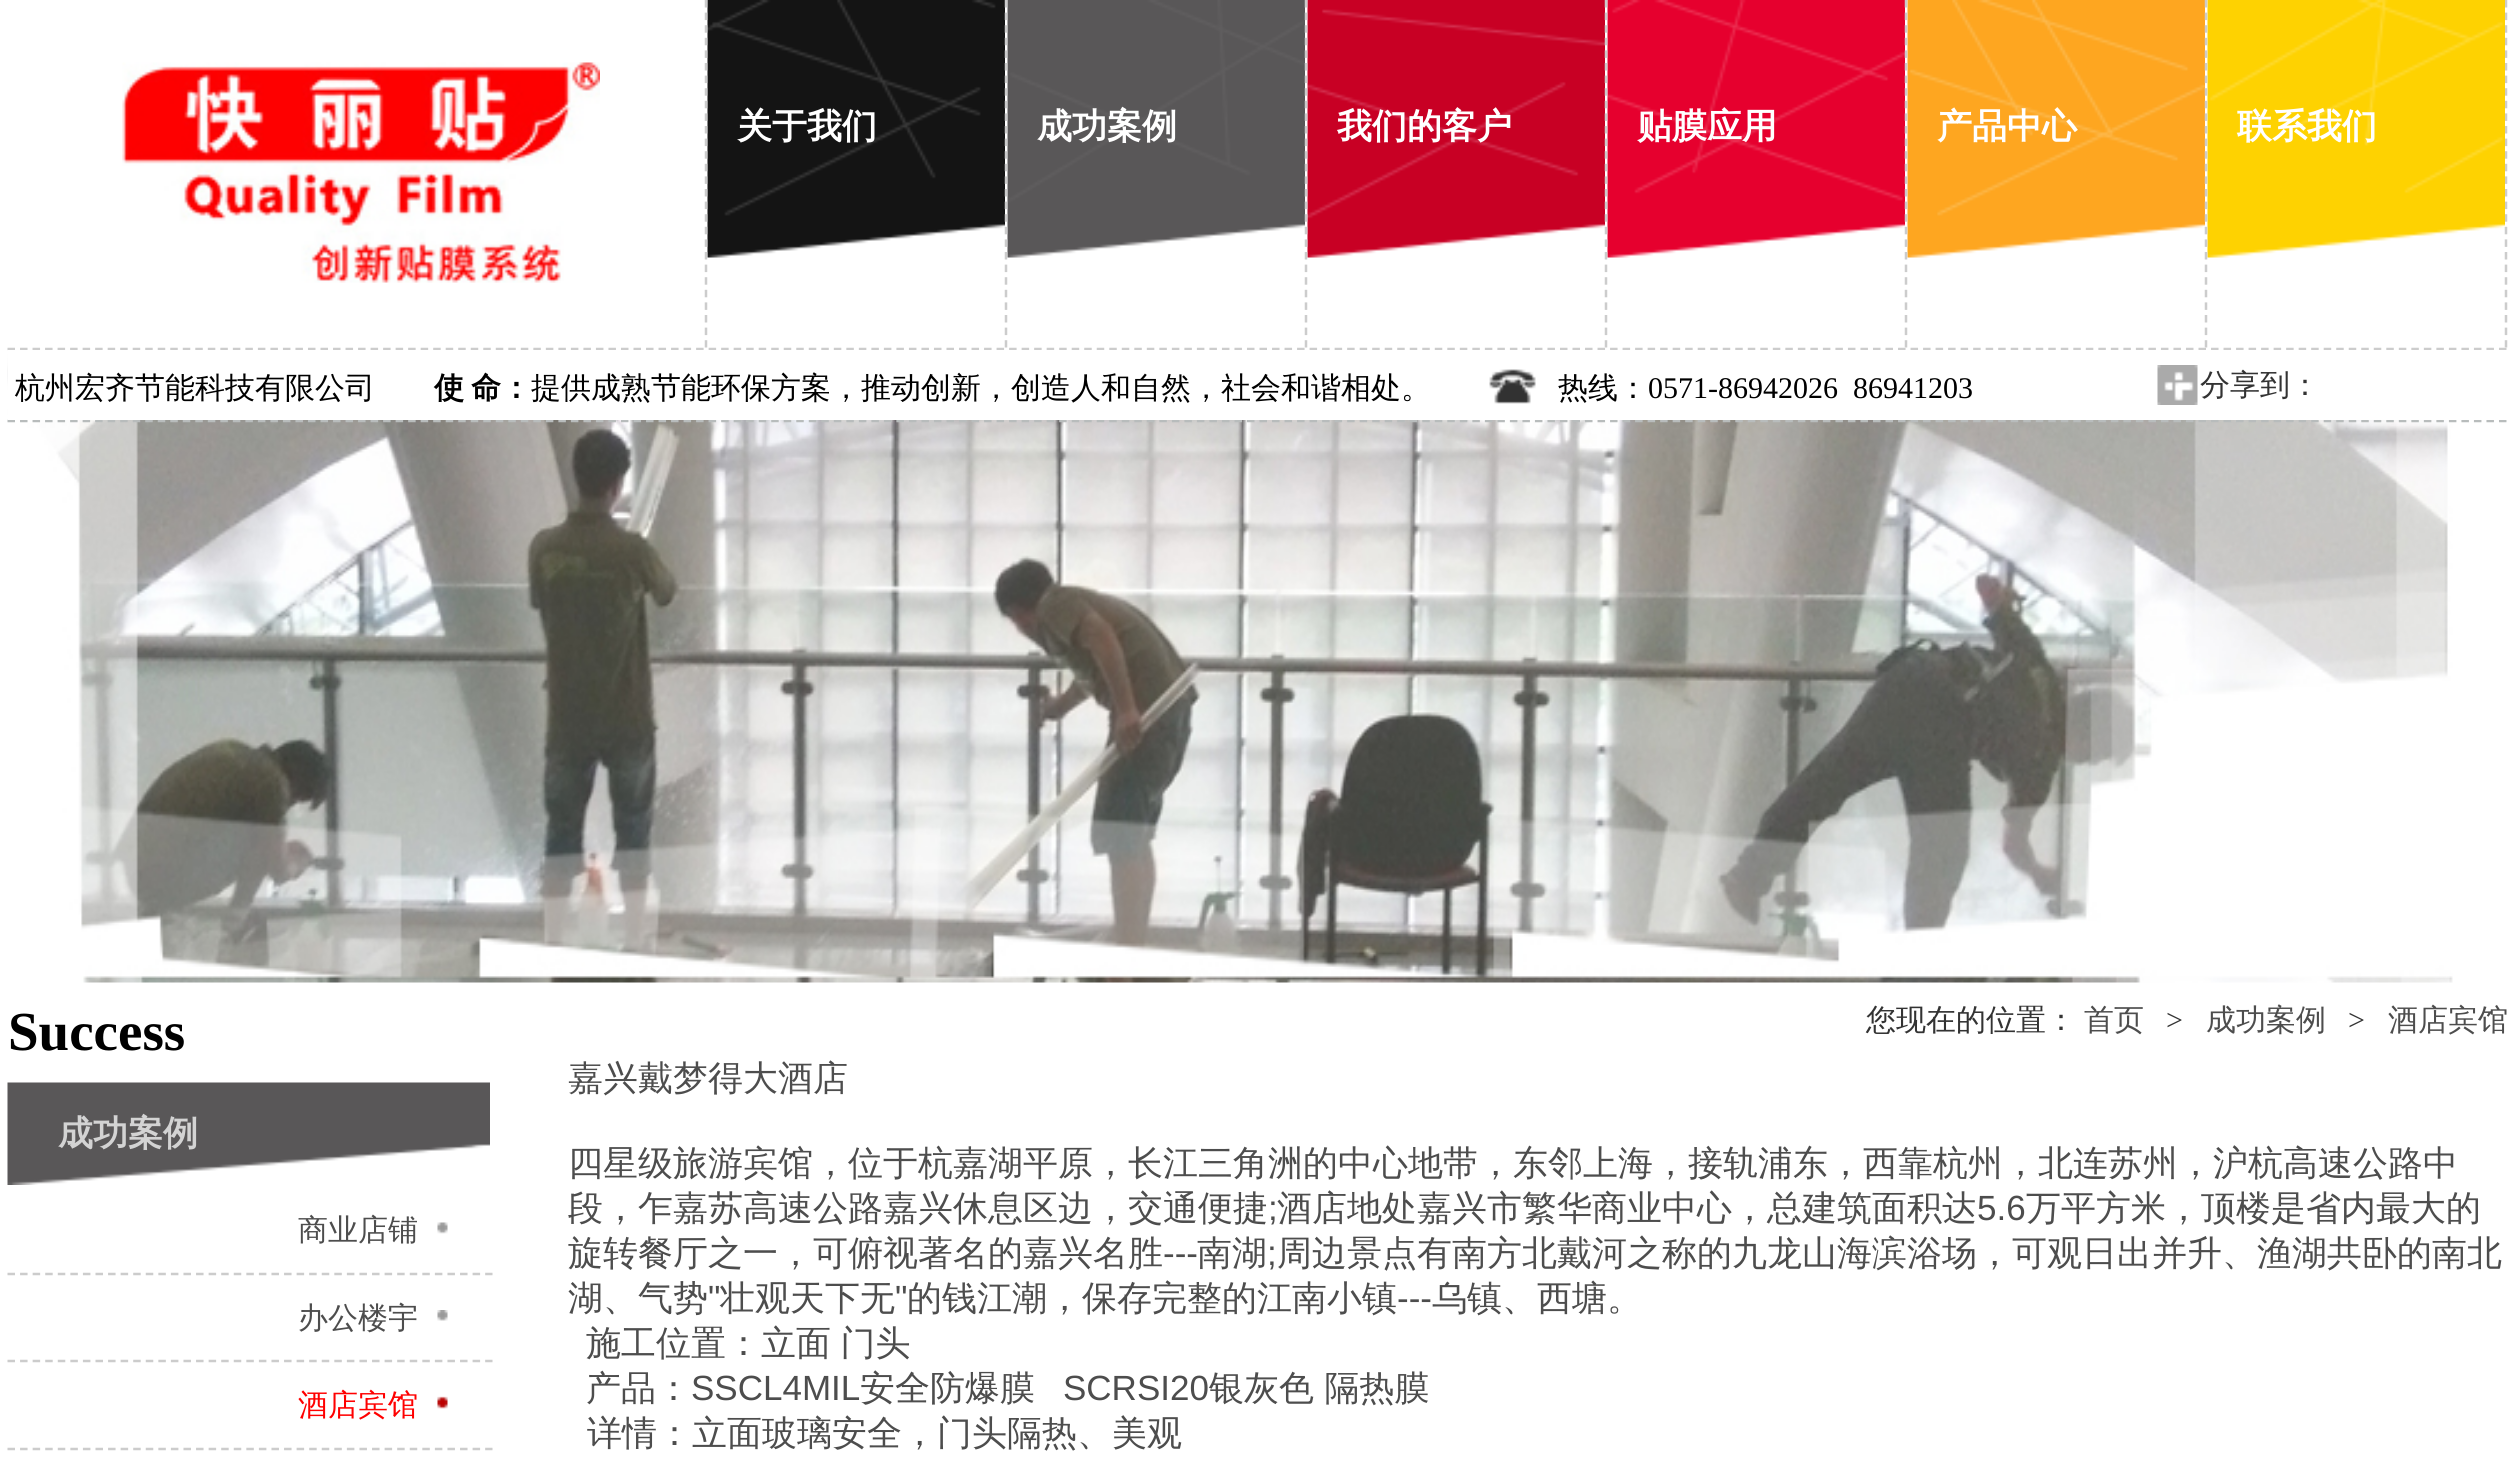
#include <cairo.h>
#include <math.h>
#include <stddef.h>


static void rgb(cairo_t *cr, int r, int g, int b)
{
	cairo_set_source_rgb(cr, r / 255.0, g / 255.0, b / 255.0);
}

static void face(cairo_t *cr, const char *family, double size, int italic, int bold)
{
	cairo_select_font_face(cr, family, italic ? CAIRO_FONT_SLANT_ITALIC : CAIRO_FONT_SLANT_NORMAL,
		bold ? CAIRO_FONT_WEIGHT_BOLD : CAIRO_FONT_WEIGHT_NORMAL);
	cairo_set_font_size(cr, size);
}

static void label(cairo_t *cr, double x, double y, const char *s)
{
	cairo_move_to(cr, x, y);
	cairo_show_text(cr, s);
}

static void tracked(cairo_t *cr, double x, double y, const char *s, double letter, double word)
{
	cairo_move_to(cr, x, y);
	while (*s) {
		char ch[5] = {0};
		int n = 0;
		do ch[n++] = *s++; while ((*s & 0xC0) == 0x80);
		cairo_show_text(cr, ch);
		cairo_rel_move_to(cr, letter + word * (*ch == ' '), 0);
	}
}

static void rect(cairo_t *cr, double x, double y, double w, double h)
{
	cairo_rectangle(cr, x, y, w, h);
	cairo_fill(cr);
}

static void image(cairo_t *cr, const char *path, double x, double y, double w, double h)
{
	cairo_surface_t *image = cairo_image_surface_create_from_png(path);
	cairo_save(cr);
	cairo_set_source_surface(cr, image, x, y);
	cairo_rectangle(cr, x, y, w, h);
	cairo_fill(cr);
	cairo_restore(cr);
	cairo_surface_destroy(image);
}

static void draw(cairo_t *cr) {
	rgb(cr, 255, 255, 255);
	cairo_paint(cr);
	cairo_new_path(cr);
	cairo_move_to(cr, 7.5, 349);
	cairo_line_to(cr, 2507.5, 349);
	rgb(cr, 204, 204, 204);
	cairo_set_line_width(cr, 2.5);
	cairo_set_dash(cr, (double[]){7.5, 5.02}, 2, 0);
	cairo_stroke(cr);
	image(cr, "image0.png", 122, 62, 478, 221);
	cairo_new_path(cr);
	cairo_move_to(cr, 2506, 0);
	cairo_line_to(cr, 2506, 347.5);
	cairo_set_dash(cr, (double[]){7.5, 5.1}, 2, 0);
	cairo_stroke(cr);
	image(cr, "image1.png", 707, 0, 298, 258);
	cairo_new_path(cr);
	cairo_move_to(cr, 706, 0);
	cairo_line_to(cr, 706, 347.5);
	cairo_stroke(cr);
	face(cr, "WenQuanYi Zen Hei", 35, 0, 1);
	rgb(cr, 255, 255, 255);
	label(cr, 737, 138, "关于我们");
	image(cr, "image2.png", 1007, 0, 298, 258);
	cairo_new_path(cr);
	cairo_move_to(cr, 1006, 0);
	cairo_line_to(cr, 1006, 347.5);
	rgb(cr, 204, 204, 204);
	cairo_stroke(cr);
	rgb(cr, 255, 255, 255);
	label(cr, 1037, 138, "成功案例");
	image(cr, "image3.png", 1307, 0, 298, 258);
	cairo_new_path(cr);
	cairo_move_to(cr, 1306, 0);
	cairo_line_to(cr, 1306, 347.5);
	rgb(cr, 204, 204, 204);
	cairo_stroke(cr);
	rgb(cr, 255, 255, 255);
	label(cr, 1337, 138, "我们的客户");
	image(cr, "image4.png", 1607, 0, 298, 258);
	cairo_new_path(cr);
	cairo_move_to(cr, 1606, 0);
	cairo_line_to(cr, 1606, 347.5);
	rgb(cr, 204, 204, 204);
	cairo_stroke(cr);
	rgb(cr, 255, 255, 255);
	label(cr, 1637, 138, "贴膜应用");
	image(cr, "image5.png", 1907, 0, 298, 258);
	cairo_new_path(cr);
	cairo_move_to(cr, 1906, 0);
	cairo_line_to(cr, 1906, 347.5);
	rgb(cr, 204, 204, 204);
	cairo_stroke(cr);
	rgb(cr, 255, 255, 255);
	label(cr, 1937, 138, "产品中心");
	image(cr, "image6.png", 2207, 0, 298, 258);
	cairo_new_path(cr);
	cairo_move_to(cr, 2206, 0);
	cairo_line_to(cr, 2206, 347.5);
	rgb(cr, 204, 204, 204);
	cairo_stroke(cr);
	rgb(cr, 255, 255, 255);
	label(cr, 2237, 138, "联系我们");
	image(cr, "image9.png", 7, 350, 2500, 633);
	cairo_new_path(cr);
	cairo_move_to(cr, 7.5, 421);
	cairo_line_to(cr, 2507.5, 421);
	rgb(cr, 184, 188, 188);
	cairo_set_dash(cr, (double[]){7.5, 5.02}, 2, 0);
	cairo_stroke(cr);
	rgb(cr, 255, 255, 255);
	rect(cr, 8, 350, 2499, 70);
	face(cr, "WenQuanYi Zen Hei Medium", 30, 0, 0);
	rgb(cr, 0, 0, 0);
	label(cr, 15, 398, "杭州宏齐节能科技有限公司");
	face(cr, "WenQuanYi Zen Hei", 30, 0, 1);
	label(cr, 434, 398, "使");
	label(cr, 471, 398, "命：");
	face(cr, "WenQuanYi Zen Hei Medium", 30, 0, 0);
	label(cr, 531, 398, "提供成熟节能环保方案，推动创新，创造人和自然，社会和谐相处。");
	image(cr, "image7.png", 1489, 369, 47, 35);
	label(cr, 1558, 398, "热线：");
	face(cr, "Liberation Serif", 30, 0, 0);
	label(cr, 1648, 398, "0571-86942026  86941203");
	image(cr, "image8.png", 2157, 365, 41, 40);
	face(cr, "WenQuanYi Zen Hei Medium", 30, 0, 0);
	rgb(cr, 51, 51, 51);
	label(cr, 2200, 395, "分享到：");
	face(cr, "Liberation Serif", 55, 0, 1);
	rgb(cr, 0, 0, 0);
	label(cr, 8, 1050, "Success");
	image(cr, "image10.png", 7, 1082, 483, 103);
	face(cr, "WenQuanYi Zen Hei", 35, 0, 1);
	rgb(cr, 211, 211, 211);
	label(cr, 58, 1145, "成功案例");
	image(cr, "image11.png", 437, 1222, 11, 12);
	cairo_new_path(cr);
	cairo_move_to(cr, 7.5, 1274);
	cairo_line_to(cr, 492.5, 1274);
	rgb(cr, 204, 204, 204);
	cairo_set_dash(cr, (double[]){7.5, 5.07}, 2, 0);
	cairo_stroke(cr);
	face(cr, "WenQuanYi Zen Hei Medium", 30, 0, 0);
	rgb(cr, 77, 77, 77);
	label(cr, 298, 1240, "商业店铺");
	image(cr, "image12.png", 437, 1310, 11, 11);
	cairo_new_path(cr);
	cairo_move_to(cr, 7.5, 1361);
	cairo_line_to(cr, 492.5, 1361);
	rgb(cr, 204, 204, 204);
	cairo_stroke(cr);
	rgb(cr, 77, 77, 77);
	label(cr, 298, 1328, "办公楼宇");
	image(cr, "image13.png", 437, 1396, 11, 13);
	cairo_new_path(cr);
	cairo_move_to(cr, 7.5, 1449);
	cairo_line_to(cr, 492.5, 1449);
	rgb(cr, 204, 204, 204);
	cairo_stroke(cr);
	rgb(cr, 255, 0, 0);
	label(cr, 298, 1415, "酒店宾馆");
	rgb(cr, 51, 51, 51);
	label(cr, 1866, 1030, "您现在的位置：");
	rgb(cr, 77, 77, 77);
	label(cr, 2084, 1030, "首页");
	face(cr, "Liberation Serif", 30, 0, 0);
	rgb(cr, 51, 51, 51);
	label(cr, 2166, 1030, ">");
	face(cr, "WenQuanYi Zen Hei Medium", 30, 0, 0);
	rgb(cr, 77, 77, 77);
	label(cr, 2206, 1030, "成功案例");
	face(cr, "Liberation Serif", 30, 0, 0);
	rgb(cr, 51, 51, 51);
	label(cr, 2348, 1030, ">");
	face(cr, "WenQuanYi Zen Hei Medium", 30, 0, 0);
	rgb(cr, 77, 77, 77);
	label(cr, 2388, 1030, "酒店宾馆");
	face(cr, "WenQuanYi Zen Hei Medium", 35, 0, 0);
	label(cr, 568, 1090, "嘉兴戴梦得大酒店");
	label(cr, 568, 1175, "四星级旅游宾馆，位于杭嘉湖平原，长江三角洲的中心地带，东邻上海，接轨浦东，西靠杭州，北连苏州，沪杭高速公路中");
	label(cr, 568, 1220, "段，乍嘉苏高速公路嘉兴休息区边，交通便捷");
	face(cr, "Liberation Sans", 35, 0, 0);
	label(cr, 1268, 1220, ";");
	face(cr, "WenQuanYi Zen Hei Medium", 35, 0, 0);
	label(cr, 1277, 1220, "酒店地处嘉兴市繁华商业中心，总建筑面积达");
	face(cr, "Liberation Sans", 35, 0, 0);
	label(cr, 1977, 1220, "5.6");
	face(cr, "WenQuanYi Zen Hei Medium", 35, 0, 0);
	label(cr, 2026, 1220, "万平方米，顶楼是省内最大的");
	label(cr, 568, 1265, "旋转餐厅之一，可俯视著名的嘉兴名胜");
	face(cr, "Liberation Sans", 35, 0, 0);
	label(cr, 1163, 1265, "---");
	face(cr, "WenQuanYi Zen Hei Medium", 35, 0, 0);
	label(cr, 1197, 1265, "南湖");
	face(cr, "Liberation Sans", 35, 0, 0);
	label(cr, 1267, 1265, ";");
	face(cr, "WenQuanYi Zen Hei Medium", 35, 0, 0);
	label(cr, 1277, 1265, "周边景点有南方北戴河之称的九龙山海滨浴场，可观日出并升、渔湖共卧的南北");
	label(cr, 568, 1310, "湖、气势");
	face(cr, "Liberation Sans", 35, 0, 0);
	label(cr, 708, 1310, "\"");
	face(cr, "WenQuanYi Zen Hei Medium", 35, 0, 0);
	label(cr, 720, 1310, "壮观天下无");
	face(cr, "Liberation Sans", 35, 0, 0);
	label(cr, 895, 1310, "\"");
	face(cr, "WenQuanYi Zen Hei Medium", 35, 0, 0);
	label(cr, 907, 1310, "的钱江潮，保存完整的江南小镇");
	label(cr, 1432, 1310, "乌镇、西塘。");
	face(cr, "Liberation Sans", 35, 0, 0);
	label(cr, 1397, 1310, "---");
	face(cr, "WenQuanYi Zen Hei Medium", 35, 0, 0);
	tracked(cr, 586, 1355, "施工位置：立面 门头", 0, -1);
	label(cr, 586, 1400, "产品：");
	face(cr, "Liberation Sans", 35, 0, 0);
	label(cr, 691, 1400, "SSCL4MIL");
	face(cr, "WenQuanYi Zen Hei Medium", 35, 0, 0);
	label(cr, 860, 1400, "安全防爆膜");
	face(cr, "Liberation Sans", 35, 0, 0);
	label(cr, 1063, 1400, "SCRSI20");
	face(cr, "WenQuanYi Zen Hei Medium", 35, 0, 0);
	label(cr, 1209, 1400, "银灰色 隔热膜");
	label(cr, 587, 1445, "详情：立面玻璃安全，门头隔热、美观");
}

int main(void) {
	cairo_surface_t *surface = cairo_image_surface_create(CAIRO_FORMAT_RGB24, 2515, 1473);
	cairo_t *cr = cairo_create(surface);
	cairo_font_options_t *options = cairo_font_options_create();
	cairo_font_options_set_hint_metrics(options, CAIRO_HINT_METRICS_OFF);
	cairo_font_options_set_hint_style(options, CAIRO_HINT_STYLE_NONE);
	cairo_set_font_options(cr, options);
	cairo_set_miter_limit(cr, 4);
	draw(cr);
	cairo_surface_write_to_png(surface, "render.png");
	cairo_font_options_destroy(options);
	cairo_destroy(cr);
	cairo_surface_destroy(surface);
	return 0;
}
